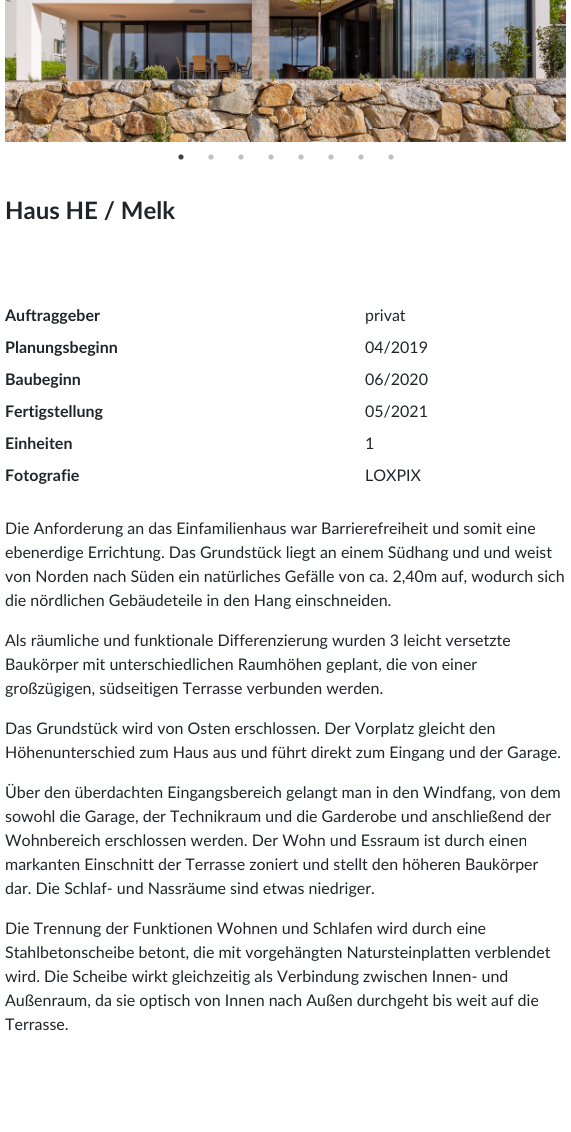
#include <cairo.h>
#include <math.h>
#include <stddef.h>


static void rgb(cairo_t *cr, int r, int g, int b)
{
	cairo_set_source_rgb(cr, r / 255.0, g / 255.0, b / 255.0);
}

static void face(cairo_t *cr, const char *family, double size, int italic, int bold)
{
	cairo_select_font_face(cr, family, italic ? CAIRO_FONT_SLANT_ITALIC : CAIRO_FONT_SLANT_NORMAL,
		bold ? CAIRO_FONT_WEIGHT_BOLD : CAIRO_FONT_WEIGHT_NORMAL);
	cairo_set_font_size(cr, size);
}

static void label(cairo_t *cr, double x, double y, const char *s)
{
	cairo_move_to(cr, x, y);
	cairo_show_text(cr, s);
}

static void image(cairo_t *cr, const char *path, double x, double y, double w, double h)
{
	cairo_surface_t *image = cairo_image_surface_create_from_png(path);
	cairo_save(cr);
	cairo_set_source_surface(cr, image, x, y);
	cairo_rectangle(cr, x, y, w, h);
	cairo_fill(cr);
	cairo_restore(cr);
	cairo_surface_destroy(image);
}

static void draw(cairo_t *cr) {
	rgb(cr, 255, 255, 255);
	cairo_paint(cr);
	image(cr, "image0.png", 5, 0, 561, 142);
	image(cr, "image1.png", 178, 154, 6, 6);
	image(cr, "image2.png", 208, 154, 6, 6);
	image(cr, "image2.png", 238, 154, 6, 6);
	image(cr, "image2.png", 268, 154, 6, 6);
	image(cr, "image2.png", 298, 154, 6, 6);
	image(cr, "image2.png", 328, 154, 6, 6);
	image(cr, "image2.png", 358, 154, 6, 6);
	image(cr, "image2.png", 388, 154, 6, 6);
	face(cr, "Lato", 24, 0, 1);
	rgb(cr, 33, 37, 41);
	label(cr, 5, 219, "Haus HE / Melk");
	face(cr, "Lato", 16, 0, 1);
	label(cr, 5, 321, "Auftraggeber");
	face(cr, "Lato", 16, 0, 0);
	label(cr, 365, 321, "privat");
	face(cr, "Lato", 16, 0, 1);
	label(cr, 5, 353, "Planungsbeginn");
	face(cr, "Lato", 16, 0, 0);
	label(cr, 365, 353, "04/2019");
	face(cr, "Lato", 16, 0, 1);
	label(cr, 5, 385, "Baubeginn");
	face(cr, "Lato", 16, 0, 0);
	label(cr, 365, 385, "06/2020");
	face(cr, "Lato", 16, 0, 1);
	label(cr, 5, 417, "Fertigstellung");
	face(cr, "Lato", 16, 0, 0);
	label(cr, 365, 417, "05/2021");
	face(cr, "Lato", 16, 0, 1);
	label(cr, 5, 449, "Einheiten");
	face(cr, "Lato", 16, 0, 0);
	label(cr, 365, 449, "1");
	face(cr, "Lato", 16, 0, 1);
	label(cr, 5, 481, "Fotografie");
	face(cr, "Lato", 16, 0, 0);
	label(cr, 365, 481, "LOXPIX");
	label(cr, 5, 534, "Die Anforderung an das Einfamilienhaus war Barrierefreiheit und somit eine");
	label(cr, 5, 558, "ebenerdige Errichtung. Das Grundstück liegt an einem Südhang und und weist");
	label(cr, 5, 582, "von Norden nach Süden ein natürliches Gefälle von ca. 2,40m auf, wodurch sich");
	label(cr, 5, 606, "die nördlichen Gebäudeteile in den Hang einschneiden.");
	label(cr, 5, 646, "Als räumliche und funktionale Differenzierung wurden 3 leicht versetzte");
	label(cr, 5, 670, "Baukörper mit unterschiedlichen Raumhöhen geplant, die von einer");
	label(cr, 5, 694, "großzügigen, südseitigen Terrasse verbunden werden.");
	label(cr, 5, 734, "Das Grundstück wird von Osten erschlossen. Der Vorplatz gleicht den");
	label(cr, 5, 758, "Höhenunterschied zum Haus aus und führt direkt zum Eingang und der Garage.");
	label(cr, 5, 798, "Über den überdachten Eingangsbereich gelangt man in den Windfang, von dem");
	label(cr, 5, 822, "sowohl die Garage, der Technikraum und die Garderobe und anschließend der");
	label(cr, 5, 846, "Wohnbereich erschlossen werden. Der Wohn und Essraum ist durch einen");
	label(cr, 5, 870, "markanten Einschnitt der Terrasse zoniert und stellt den höheren Baukörper");
	label(cr, 5, 894, "dar. Die Schlaf- und Nassräume sind etwas niedriger.");
	label(cr, 5, 934, "Die Trennung der Funktionen Wohnen und Schlafen wird durch eine");
	label(cr, 5, 958, "Stahlbetonscheibe betont, die mit vorgehängten Natursteinplatten verblendet");
	label(cr, 5, 982, "wird. Die Scheibe wirkt gleichzeitig als Verbindung zwischen Innen- und");
	label(cr, 5, 1006, "Außenraum, da sie optisch von Innen nach Außen durchgeht bis weit auf die");
	label(cr, 5, 1030, "Terrasse.");
}

int main(void) {
	cairo_surface_t *surface = cairo_image_surface_create(CAIRO_FORMAT_RGB24, 571, 1132);
	cairo_t *cr = cairo_create(surface);
	cairo_font_options_t *options = cairo_font_options_create();
	cairo_font_options_set_hint_metrics(options, CAIRO_HINT_METRICS_OFF);
	cairo_font_options_set_hint_style(options, CAIRO_HINT_STYLE_NONE);
	cairo_set_font_options(cr, options);
	cairo_set_miter_limit(cr, 4);
	draw(cr);
	cairo_surface_write_to_png(surface, "render.png");
	cairo_font_options_destroy(options);
	cairo_destroy(cr);
	cairo_surface_destroy(surface);
	return 0;
}
